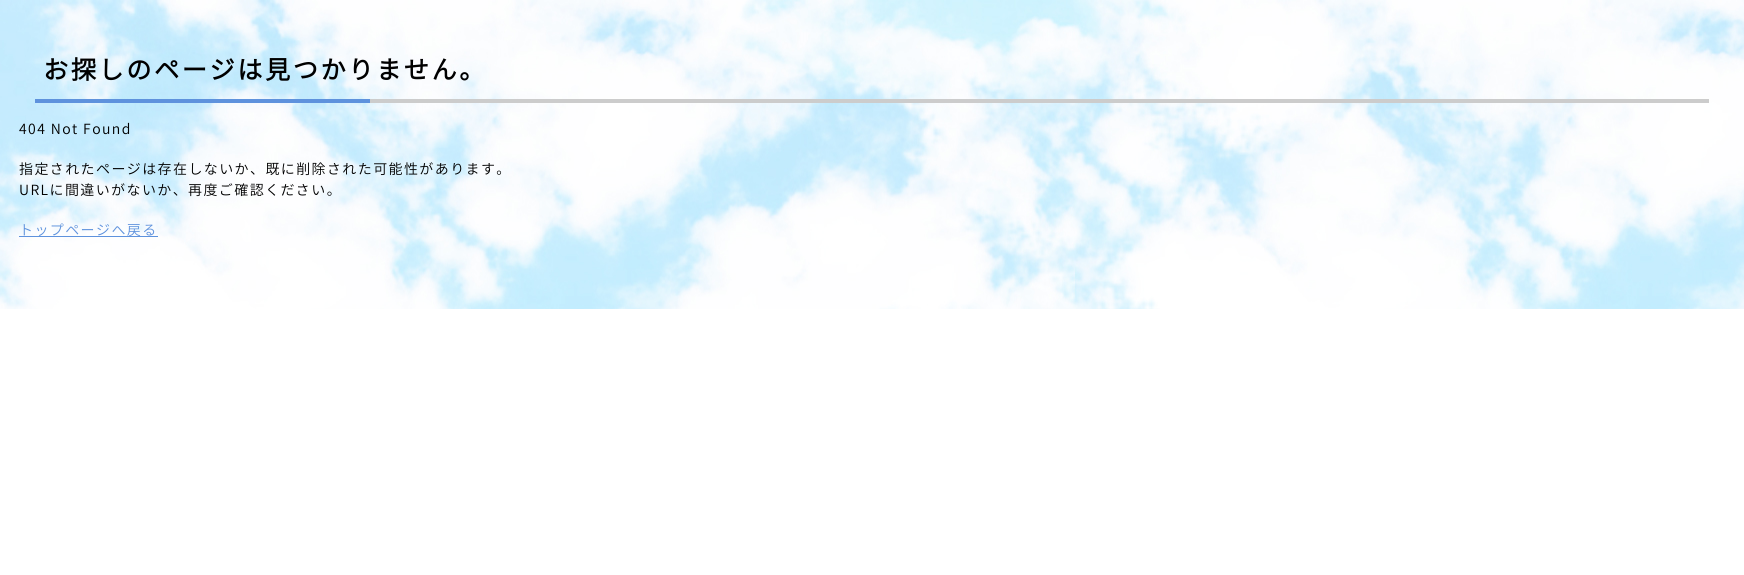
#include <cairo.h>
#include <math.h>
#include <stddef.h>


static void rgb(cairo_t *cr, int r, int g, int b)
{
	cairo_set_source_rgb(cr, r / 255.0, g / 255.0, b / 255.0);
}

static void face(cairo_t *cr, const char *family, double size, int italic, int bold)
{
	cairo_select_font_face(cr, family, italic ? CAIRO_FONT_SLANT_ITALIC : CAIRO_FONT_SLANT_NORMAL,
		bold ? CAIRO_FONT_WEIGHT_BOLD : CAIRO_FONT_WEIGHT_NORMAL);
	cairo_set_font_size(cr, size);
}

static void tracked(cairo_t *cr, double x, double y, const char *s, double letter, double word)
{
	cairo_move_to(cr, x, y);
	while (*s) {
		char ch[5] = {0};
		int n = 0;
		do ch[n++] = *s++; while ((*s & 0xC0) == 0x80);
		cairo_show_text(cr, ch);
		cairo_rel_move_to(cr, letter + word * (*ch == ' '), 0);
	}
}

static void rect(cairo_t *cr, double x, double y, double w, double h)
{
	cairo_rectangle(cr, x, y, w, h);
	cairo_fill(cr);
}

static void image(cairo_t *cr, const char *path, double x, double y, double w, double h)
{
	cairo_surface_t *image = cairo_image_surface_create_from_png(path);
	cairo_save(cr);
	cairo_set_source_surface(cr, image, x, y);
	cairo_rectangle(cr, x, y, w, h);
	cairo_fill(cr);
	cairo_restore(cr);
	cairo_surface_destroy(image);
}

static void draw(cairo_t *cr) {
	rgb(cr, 255, 255, 255);
	cairo_paint(cr);
	image(cr, "image0.png", 0, 0, 1744, 309);
	rgb(cr, 204, 204, 204);
	rect(cr, 370, 99, 1339, 4);
	face(cr, "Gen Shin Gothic", 25.25, 0, 1);
	rgb(cr, 0, 0, 0);
	tracked(cr, 43, 79, "お探しのページは見つかりません。", 2.5, 0);
	rgb(cr, 94, 146, 221);
	rect(cr, 35, 99, 335, 4);
	face(cr, "Gen Shin Gothic Light", 14, 0, 0);
	rgb(cr, 0, 0, 0);
	tracked(cr, 19, 134, "404 Not Found", 1.4, 0);
	tracked(cr, 19, 174, "指定されたページは存在しないか、既に削除された可能性があります。", 1.4, 0);
	tracked(cr, 19, 195, "URLに間違いがないか、再度ご確認ください。", 1.4, 0);
	rgb(cr, 94, 146, 221);
	rect(cr, 19, 236, 139, 1);
	tracked(cr, 19, 235, "トップページへ戻る", 1.4, 0);
}

int main(void) {
	cairo_surface_t *surface = cairo_image_surface_create(CAIRO_FORMAT_RGB24, 1744, 575);
	cairo_t *cr = cairo_create(surface);
	cairo_font_options_t *options = cairo_font_options_create();
	cairo_font_options_set_hint_metrics(options, CAIRO_HINT_METRICS_OFF);
	cairo_font_options_set_hint_style(options, CAIRO_HINT_STYLE_NONE);
	cairo_set_font_options(cr, options);
	cairo_set_miter_limit(cr, 4);
	draw(cr);
	cairo_surface_write_to_png(surface, "render.png");
	cairo_font_options_destroy(options);
	cairo_destroy(cr);
	cairo_surface_destroy(surface);
	return 0;
}
